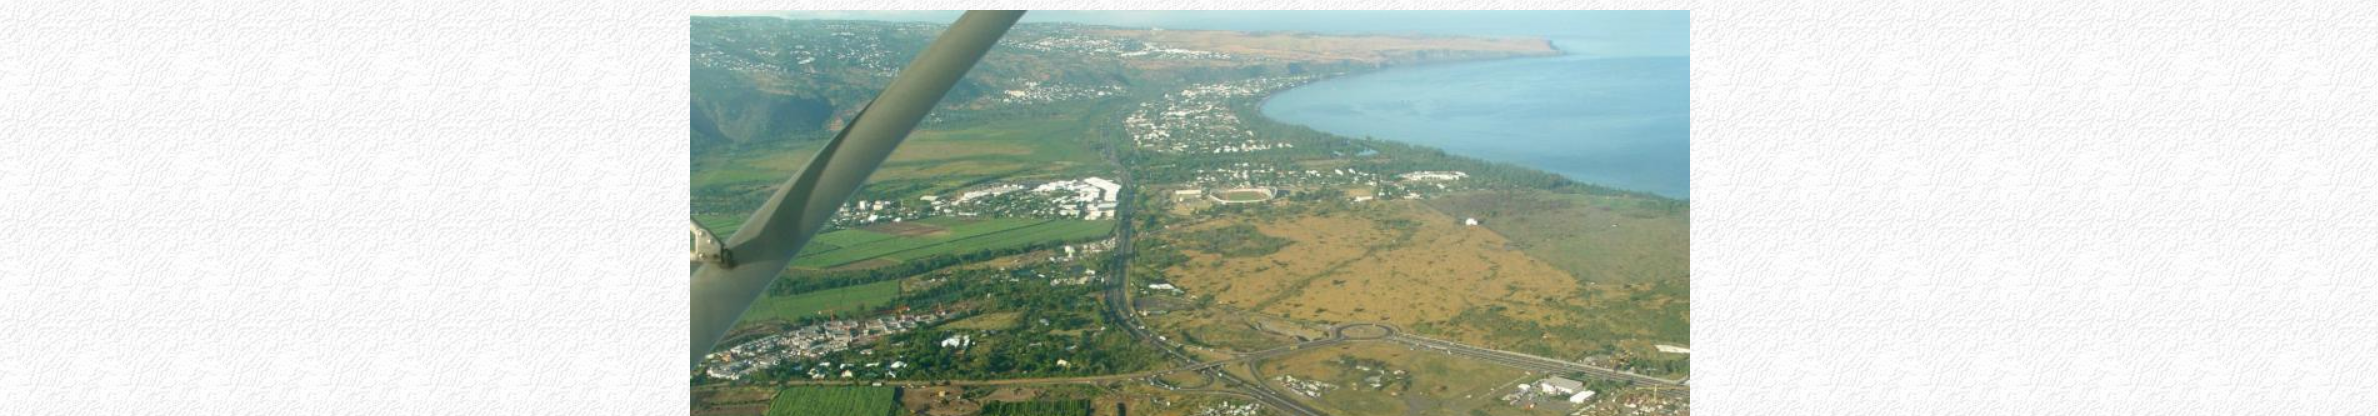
#include <cairo.h>
#include <math.h>
#include <stddef.h>


static void rgb(cairo_t *cr, int r, int g, int b)
{
	cairo_set_source_rgb(cr, r / 255.0, g / 255.0, b / 255.0);
}

static void image(cairo_t *cr, const char *path, double x, double y, double w, double h)
{
	cairo_surface_t *image = cairo_image_surface_create_from_png(path);
	cairo_save(cr);
	cairo_set_source_surface(cr, image, x, y);
	cairo_rectangle(cr, x, y, w, h);
	cairo_fill(cr);
	cairo_restore(cr);
	cairo_surface_destroy(image);
}

static void draw(cairo_t *cr) {
	rgb(cr, 255, 255, 255);
	cairo_paint(cr);
	image(cr, "image0.png", 0, 0, 2378, 416);
	image(cr, "image1.png", 690, 10, 1000, 406);
}

int main(void) {
	cairo_surface_t *surface = cairo_image_surface_create(CAIRO_FORMAT_RGB24, 2378, 416);
	cairo_t *cr = cairo_create(surface);
	cairo_font_options_t *options = cairo_font_options_create();
	cairo_font_options_set_hint_metrics(options, CAIRO_HINT_METRICS_OFF);
	cairo_font_options_set_hint_style(options, CAIRO_HINT_STYLE_NONE);
	cairo_set_font_options(cr, options);
	cairo_set_miter_limit(cr, 4);
	draw(cr);
	cairo_surface_write_to_png(surface, "render.png");
	cairo_font_options_destroy(options);
	cairo_destroy(cr);
	cairo_surface_destroy(surface);
	return 0;
}
